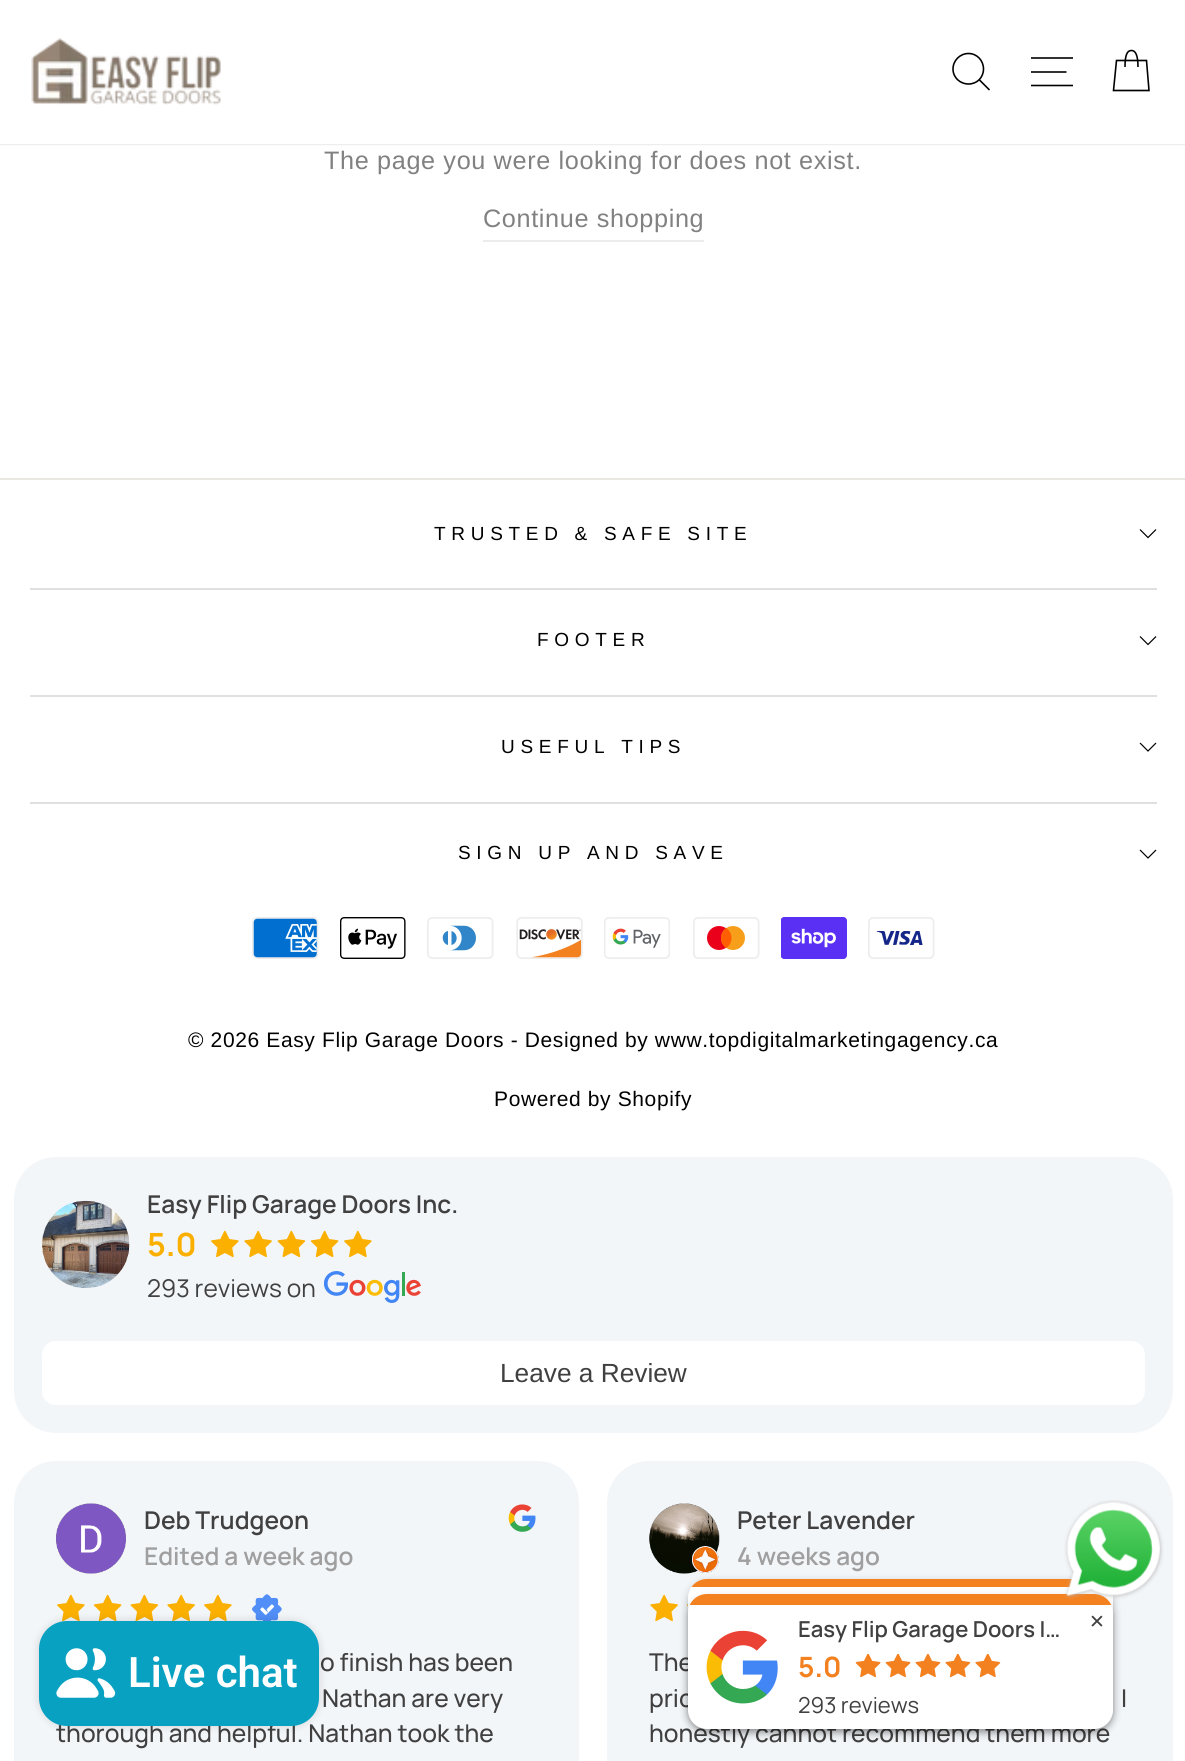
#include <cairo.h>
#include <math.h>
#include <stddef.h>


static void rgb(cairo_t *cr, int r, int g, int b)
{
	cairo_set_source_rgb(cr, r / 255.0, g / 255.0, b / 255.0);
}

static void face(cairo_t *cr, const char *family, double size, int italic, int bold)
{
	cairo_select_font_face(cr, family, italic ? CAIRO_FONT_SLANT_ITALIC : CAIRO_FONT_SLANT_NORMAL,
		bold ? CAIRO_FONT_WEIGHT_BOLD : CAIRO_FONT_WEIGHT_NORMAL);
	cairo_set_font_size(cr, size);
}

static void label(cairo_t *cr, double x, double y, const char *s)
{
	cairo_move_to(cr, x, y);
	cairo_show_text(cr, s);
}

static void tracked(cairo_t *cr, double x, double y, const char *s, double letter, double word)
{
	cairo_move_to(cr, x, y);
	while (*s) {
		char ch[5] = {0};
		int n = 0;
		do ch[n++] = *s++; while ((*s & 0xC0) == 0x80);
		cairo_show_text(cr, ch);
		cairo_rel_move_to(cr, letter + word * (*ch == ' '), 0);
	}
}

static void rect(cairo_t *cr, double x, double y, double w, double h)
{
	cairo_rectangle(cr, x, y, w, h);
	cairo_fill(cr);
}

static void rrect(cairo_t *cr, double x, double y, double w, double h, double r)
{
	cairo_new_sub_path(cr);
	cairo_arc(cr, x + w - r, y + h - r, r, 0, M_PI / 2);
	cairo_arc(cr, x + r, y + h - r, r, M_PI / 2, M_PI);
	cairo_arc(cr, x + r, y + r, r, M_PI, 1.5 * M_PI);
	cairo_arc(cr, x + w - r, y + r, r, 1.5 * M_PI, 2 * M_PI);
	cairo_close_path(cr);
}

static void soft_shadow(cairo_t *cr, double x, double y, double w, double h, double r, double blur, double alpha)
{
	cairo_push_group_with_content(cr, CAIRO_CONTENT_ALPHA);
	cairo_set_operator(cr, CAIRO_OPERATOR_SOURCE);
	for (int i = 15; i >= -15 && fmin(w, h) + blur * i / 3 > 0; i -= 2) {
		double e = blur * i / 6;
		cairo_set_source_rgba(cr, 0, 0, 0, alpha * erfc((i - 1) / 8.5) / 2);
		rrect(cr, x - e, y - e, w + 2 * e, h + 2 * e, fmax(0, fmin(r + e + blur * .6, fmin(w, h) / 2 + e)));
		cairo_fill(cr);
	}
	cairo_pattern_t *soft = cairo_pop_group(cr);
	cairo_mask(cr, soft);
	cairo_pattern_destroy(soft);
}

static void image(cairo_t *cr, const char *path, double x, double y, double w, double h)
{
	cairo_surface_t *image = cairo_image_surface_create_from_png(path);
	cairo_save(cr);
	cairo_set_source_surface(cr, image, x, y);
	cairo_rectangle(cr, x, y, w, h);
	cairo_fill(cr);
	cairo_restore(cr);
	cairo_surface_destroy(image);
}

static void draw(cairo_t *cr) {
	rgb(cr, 255, 255, 255);
	cairo_paint(cr);
	rgb(cr, 0, 0, 0);
	soft_shadow(cr, 0, 0, 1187, 144, 0, 1, 0.2);
	rgb(cr, 255, 255, 255);
	rect(cr, 0, 0, 1185, 144);
	image(cr, "image0.png", 31, 38, 190, 67);
	cairo_new_path(cr);
	cairo_move_to(cr, 983.5, 69);
	cairo_curve_to(cr, 983.5, 77.5, 977, 84, 968.5, 84);
	cairo_curve_to(cr, 960, 84, 953, 77.5, 953, 69);
	cairo_curve_to(cr, 953, 60.5, 960, 53.5, 968.5, 53.5);
	cairo_curve_to(cr, 977, 53.5, 983.5, 60.5, 983.5, 69);
	cairo_close_path(cr);
	cairo_move_to(cr, 989.5, 90);
	cairo_line_to(cr, 979.5, 80);
	rgb(cr, 0, 0, 0);
	cairo_set_line_width(cr, 1.6);
	cairo_stroke(cr);
	cairo_new_path(cr);
	cairo_move_to(cr, 1031, 58);
	cairo_line_to(cr, 1073, 58);
	cairo_move_to(cr, 1031, 72);
	cairo_line_to(cr, 1066.5, 72);
	cairo_move_to(cr, 1031, 85.5);
	cairo_line_to(cr, 1073, 85.5);
	cairo_stroke(cr);
	cairo_new_path(cr);
	cairo_move_to(cr, 1125, 67);
	cairo_curve_to(cr, 1125, 54, 1127.5, 50.5, 1131.5, 50.5);
	cairo_curve_to(cr, 1135, 50.5, 1138, 54, 1138, 67);
	cairo_move_to(cr, 1116.5, 60.5);
	cairo_line_to(cr, 1146.5, 60.5);
	cairo_line_to(cr, 1149, 90.5);
	cairo_line_to(cr, 1113.5, 90.5);
	cairo_close_path(cr);
	cairo_stroke(cr);
	face(cr, "Liberation Sans", 25.25, 0, 0);
	rgb(cr, 129, 129, 129);
	tracked(cr, 324, 169, "The page you were looking for does not exist.", 0.63, 0);
	rgb(cr, 236, 236, 236);
	rect(cr, 483, 240, 221, 2);
	rgb(cr, 129, 129, 129);
	tracked(cr, 483, 227, "Continue shopping", 0.63, 0);
	rgb(cr, 232, 232, 225);
	rect(cr, 0, 478, 1185, 2);
	face(cr, "Liberation Sans", 19, 0, 0);
	rgb(cr, 0, 0, 0);
	tracked(cr, 434, 540, "TRUSTED & SAFE SITE", 5.7, 0);
	cairo_new_path(cr);
	cairo_move_to(cr, 1140, 529.5);
	cairo_line_to(cr, 1148, 537.5);
	cairo_line_to(cr, 1156, 529.5);
	cairo_set_line_width(cr, 1.2);
	cairo_stroke(cr);
	rgb(cr, 224, 224, 224);
	rect(cr, 30, 588, 1127, 2);
	rgb(cr, 0, 0, 0);
	tracked(cr, 537, 646, "FOOTER", 5.7, 0);
	cairo_new_path(cr);
	cairo_move_to(cr, 1140, 636.5);
	cairo_line_to(cr, 1148, 644.5);
	cairo_line_to(cr, 1156, 636.5);
	cairo_stroke(cr);
	rgb(cr, 224, 224, 224);
	rect(cr, 30, 695, 1127, 2);
	rgb(cr, 0, 0, 0);
	tracked(cr, 501, 753, "USEFUL TIPS", 5.7, 0);
	cairo_new_path(cr);
	cairo_move_to(cr, 1140, 743);
	cairo_line_to(cr, 1148, 751);
	cairo_line_to(cr, 1156, 743);
	cairo_stroke(cr);
	rgb(cr, 224, 224, 224);
	rect(cr, 30, 802, 1127, 2);
	rgb(cr, 0, 0, 0);
	tracked(cr, 458, 859, "SIGN UP AND SAVE", 5.7, 0);
	cairo_new_path(cr);
	cairo_move_to(cr, 1140, 850);
	cairo_line_to(cr, 1148, 858);
	cairo_line_to(cr, 1156, 850);
	cairo_stroke(cr);
	image(cr, "image1.png", 252, 917, 67, 42);
	image(cr, "image2.png", 340, 917, 66, 42);
	image(cr, "image3.png", 427, 917, 67, 42);
	image(cr, "image4.png", 516, 917, 67, 42);
	image(cr, "image5.png", 604, 917, 66, 42);
	image(cr, "image6.png", 693, 917, 67, 42);
	image(cr, "image7.png", 781, 917, 66, 42);
	image(cr, "image8.png", 868, 917, 67, 42);
	face(cr, "Liberation Sans", 21, 0, 0);
	tracked(cr, 188, 1047, "© 2026 Easy Flip Garage Doors - Designed by www.topdigitalmarketingagency.ca", 0.63, 0);
	tracked(cr, 494, 1106, "Powered by Shopify", 0.63, 0);
	rgb(cr, 243, 246, 249);
	rrect(cr, 14, 1157, 1159, 276, 42);
	cairo_fill(cr);
	image(cr, "image9.png", 42, 1200, 88, 88);
	face(cr, "Manrope SemiBold", 24.5, 0, 0);
	rgb(cr, 64, 64, 64);
	label(cr, 147, 1213, "Easy Flip Garage Doors Inc.");
	face(cr, "Manrope", 32, 0, 1);
	rgb(cr, 251, 176, 0);
	label(cr, 147, 1256, "5.0");
	image(cr, "image10.png", 211, 1230, 28, 28);
	image(cr, "image11.png", 244, 1230, 28, 28);
	image(cr, "image12.png", 277, 1230, 29, 28);
	image(cr, "image13.png", 310, 1230, 29, 28);
	image(cr, "image10.png", 344, 1230, 28, 28);
	face(cr, "Manrope", 24.5, 0, 0);
	rgb(cr, 64, 64, 64);
	label(cr, 147, 1297, "293 reviews on");
	image(cr, "image14.png", 324, 1271, 97, 32);
	rgb(cr, 255, 255, 255);
	rrect(cr, 42, 1341, 1103, 64, 14);
	cairo_fill(cr);
	face(cr, "Liberation Sans", 26.25, 0, 0);
	rgb(cr, 64, 64, 64);
	label(cr, 500, 1382, "Leave a Review");
	rgb(cr, 243, 246, 249);
	rrect(cr, 14, 1461, 565, 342, 42);
	cairo_fill(cr);
	image(cr, "image15.png", 56, 1503, 70, 71);
	face(cr, "Manrope SemiBold", 24.5, 0, 0);
	rgb(cr, 64, 64, 64);
	label(cr, 144, 1529, "Deb Trudgeon");
	rgb(cr, 159, 159, 159);
	label(cr, 144, 1565, "Edited a week ago");
	image(cr, "image16.png", 508, 1504, 28, 28);
	image(cr, "image10.png", 57, 1594, 28, 28);
	image(cr, "image17.png", 93, 1594, 29, 27);
	image(cr, "image18.png", 130, 1594, 29, 27);
	image(cr, "image19.png", 167, 1594, 28, 27);
	image(cr, "image20.png", 204, 1594, 28, 27);
	image(cr, "image21.png", 252, 1594, 30, 27);
	face(cr, "Manrope Medium", 24.5, 0, 0);
	rgb(cr, 64, 64, 64);
	label(cr, 320, 1671, "o finish has been");
	label(cr, 322, 1707, "Nathan are very");
	label(cr, 56, 1742, "thorough and helpful. Nathan took the");
	rgb(cr, 243, 246, 249);
	rrect(cr, 607, 1461, 566, 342, 42);
	cairo_fill(cr);
	image(cr, "image22.png", 649, 1503, 71, 71);
	face(cr, "Manrope SemiBold", 24.5, 0, 0);
	rgb(cr, 64, 64, 64);
	label(cr, 737, 1529, "Peter Lavender");
	rgb(cr, 159, 159, 159);
	label(cr, 737, 1565, "4 weeks ago");
	image(cr, "image11.png", 650, 1594, 28, 28);
	image(cr, "image23.png", 687, 1604, 1, 3);
	face(cr, "Manrope Medium", 24.5, 0, 0);
	rgb(cr, 64, 64, 64);
	label(cr, 649, 1671, "The");
	label(cr, 649, 1707, "pric");
	label(cr, 1121, 1707, "I");
	label(cr, 649, 1742, "honestly cannot recommend them more");
	rgb(cr, 0, 0, 0);
	soft_shadow(cr, 688, 1582, 425, 149, 19, 4, 0.26);
	cairo_save(cr);
	rrect(cr, 688, 1579, 425, 148, 19);
	cairo_clip(cr);
	rgb(cr, 244, 129, 32);
	rect(cr, 688, 1579, 384, 8);
	rgb(cr, 255, 255, 255);
	cairo_new_path(cr);
	cairo_move_to(cr, 688, 1587);
	cairo_line_to(cr, 1113, 1587);
	cairo_line_to(cr, 1113, 1708);
	cairo_curve_to(cr, 1113, 1718.5, 1104.5, 1727, 1094, 1727);
	cairo_line_to(cr, 707, 1727);
	cairo_curve_to(cr, 696.5, 1727, 688, 1718.5, 688, 1708);
	cairo_close_path(cr);
	cairo_fill(cr);
	cairo_restore(cr);
	soft_shadow(cr, 688, 1598, 425, 135, 19, 4, 0.26);
	cairo_save(cr);
	rrect(cr, 688, 1594, 425, 135, 19);
	cairo_clip(cr);
	rgb(cr, 244, 129, 32);
	rect(cr, 689, 1594, 423, 11);
	cairo_restore(cr);
	image(cr, "image24.png", 1064, 1500, 100, 100);
	soft_shadow(cr, 39, 1621, 280, 105, 28, 4.5, 0.15);
	rgb(cr, 8, 161, 194);
	rrect(cr, 39, 1621, 280, 105, 28);
	cairo_fill(cr);
	image(cr, "image25.png", 56, 1648, 60, 50);
	face(cr, "Roboto SemiBold", 42, 0, 0);
	rgb(cr, 255, 255, 255);
	label(cr, 128, 1687, "Live chat");
	cairo_save(cr);
	rrect(cr, 688, 1594, 425, 135, 19);
	cairo_clip(cr);
	cairo_new_path(cr);
	cairo_move_to(cr, 688, 1605);
	cairo_line_to(cr, 1113, 1605);
	cairo_line_to(cr, 1113, 1710);
	cairo_curve_to(cr, 1113, 1720.5, 1104.5, 1729, 1094, 1729);
	cairo_line_to(cr, 707, 1729);
	cairo_curve_to(cr, 696.5, 1729, 688, 1720.5, 688, 1710);
	cairo_close_path(cr);
	cairo_fill(cr);
	cairo_restore(cr);
	image(cr, "image26.png", 706, 1630, 72, 74);
	face(cr, "Manrope SemiBold", 22, 0, 0);
	rgb(cr, 64, 64, 64);
	label(cr, 798, 1637, "Easy Flip Garage Doors I…");
	face(cr, "Manrope", 28, 0, 1);
	rgb(cr, 244, 129, 32);
	label(cr, 798, 1677, "5.0");
	image(cr, "image27.png", 855, 1654, 26, 24);
	image(cr, "image28.png", 885, 1654, 26, 24);
	image(cr, "image29.png", 915, 1654, 26, 24);
	image(cr, "image30.png", 945, 1654, 26, 24);
	image(cr, "image31.png", 975, 1654, 26, 24);
	face(cr, "Manrope", 22, 0, 0);
	rgb(cr, 64, 64, 64);
	label(cr, 798, 1713, "293 reviews");
	face(cr, "DejaVu Sans", 19, 0, 0);
	label(cr, 1089, 1628, "✕");
}

int main(void) {
	cairo_surface_t *surface = cairo_image_surface_create(CAIRO_FORMAT_RGB24, 1185, 1761);
	cairo_t *cr = cairo_create(surface);
	cairo_font_options_t *options = cairo_font_options_create();
	cairo_font_options_set_hint_metrics(options, CAIRO_HINT_METRICS_OFF);
	cairo_font_options_set_hint_style(options, CAIRO_HINT_STYLE_NONE);
	cairo_set_font_options(cr, options);
	cairo_set_miter_limit(cr, 4);
	draw(cr);
	cairo_surface_write_to_png(surface, "render.png");
	cairo_font_options_destroy(options);
	cairo_destroy(cr);
	cairo_surface_destroy(surface);
	return 0;
}
